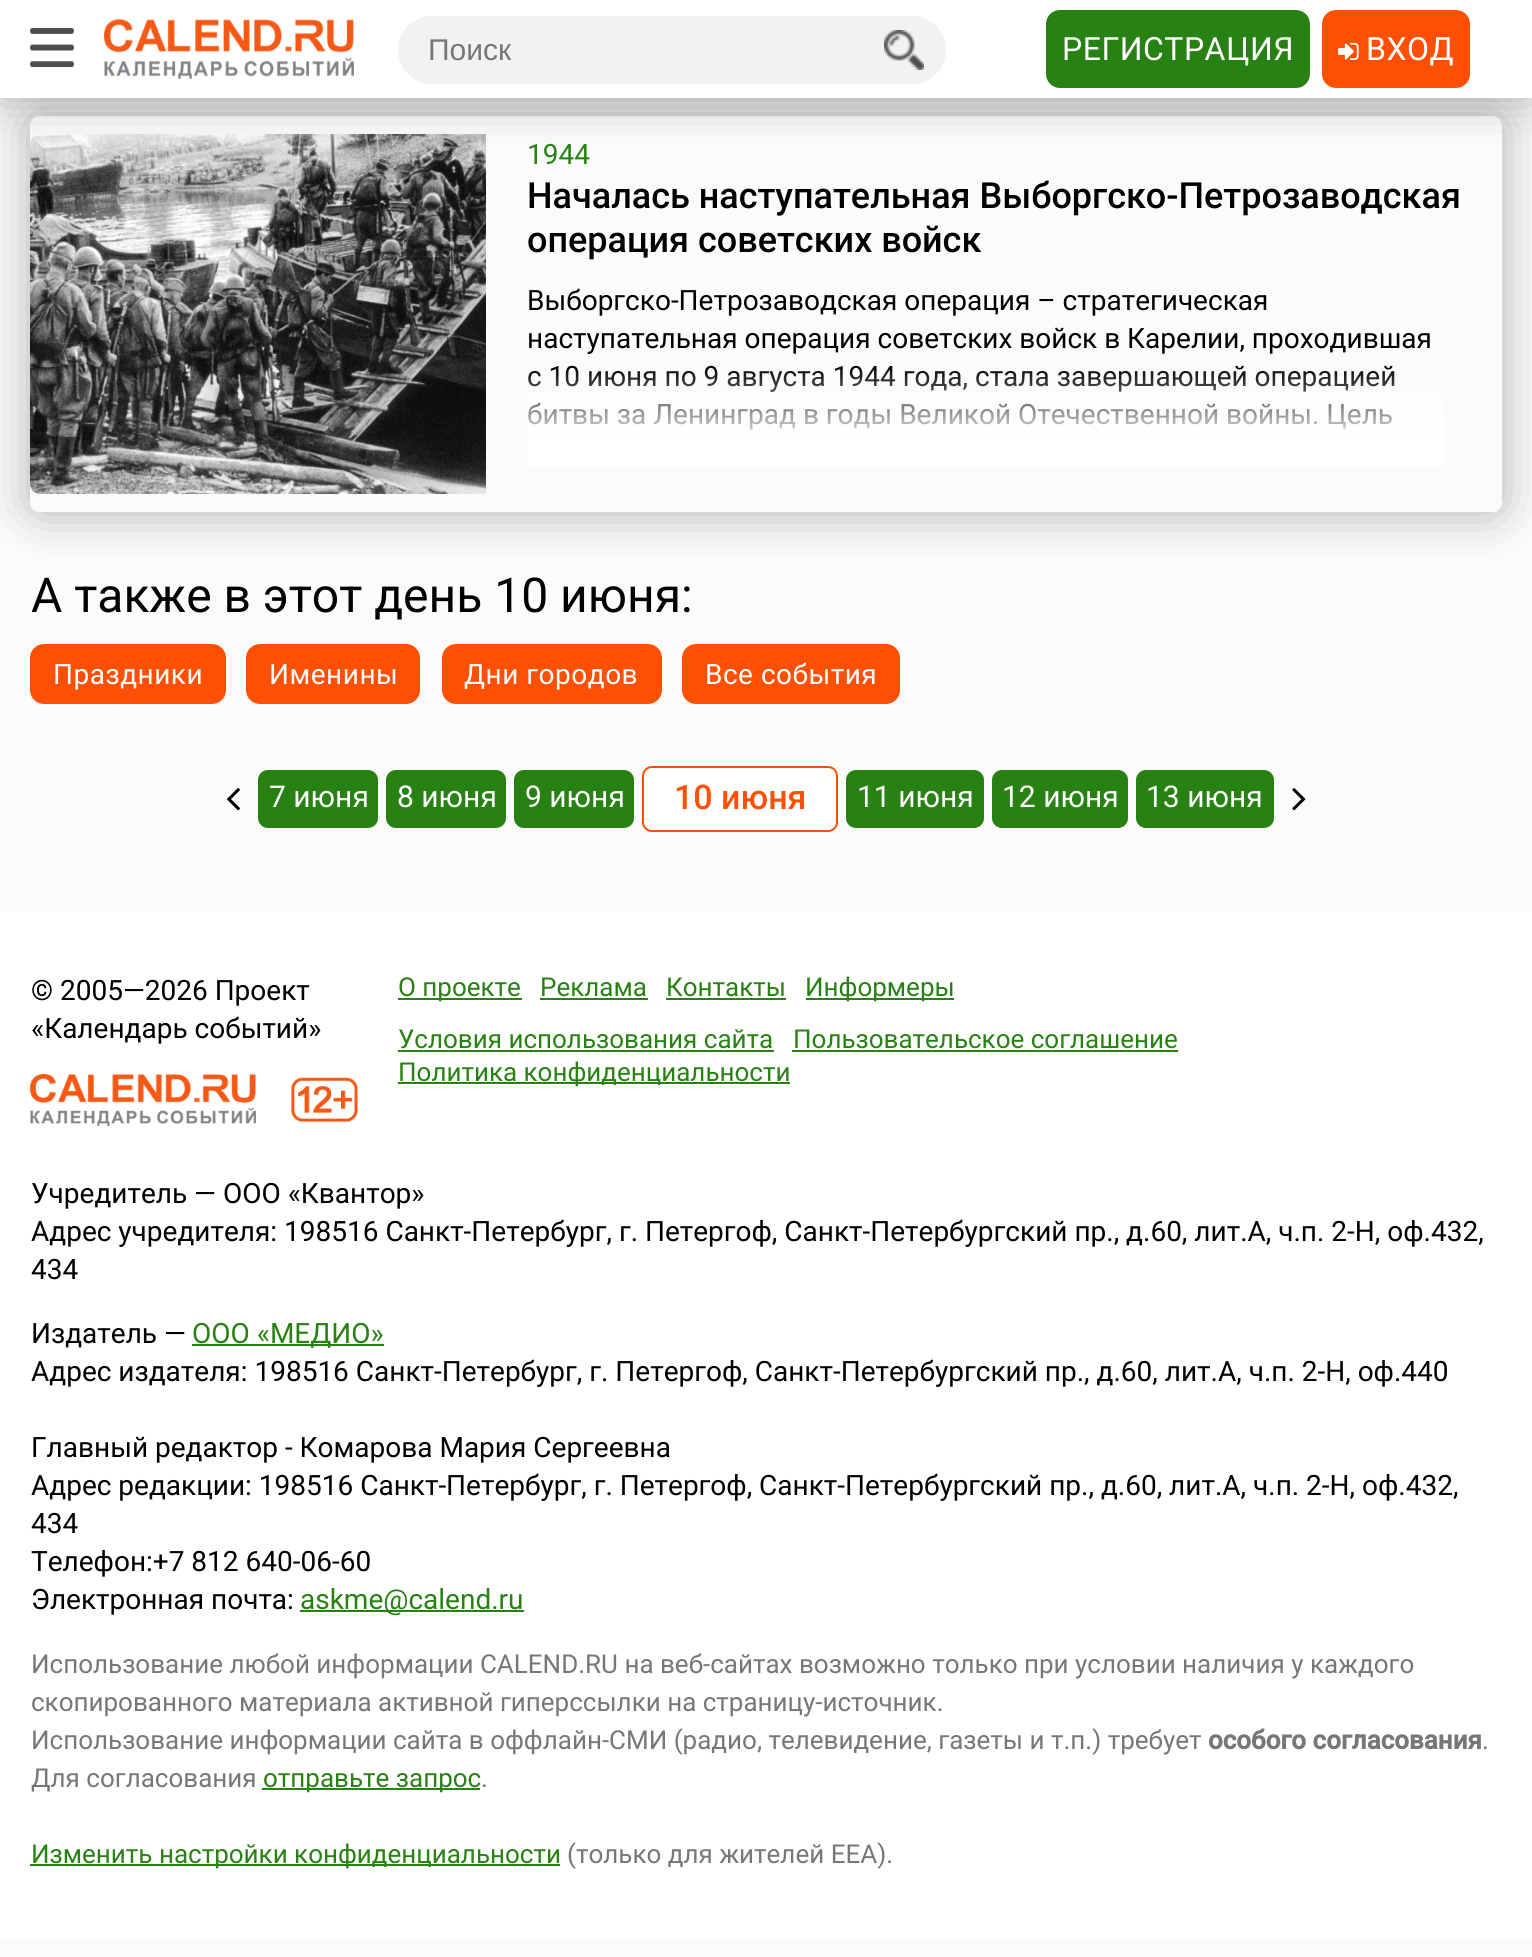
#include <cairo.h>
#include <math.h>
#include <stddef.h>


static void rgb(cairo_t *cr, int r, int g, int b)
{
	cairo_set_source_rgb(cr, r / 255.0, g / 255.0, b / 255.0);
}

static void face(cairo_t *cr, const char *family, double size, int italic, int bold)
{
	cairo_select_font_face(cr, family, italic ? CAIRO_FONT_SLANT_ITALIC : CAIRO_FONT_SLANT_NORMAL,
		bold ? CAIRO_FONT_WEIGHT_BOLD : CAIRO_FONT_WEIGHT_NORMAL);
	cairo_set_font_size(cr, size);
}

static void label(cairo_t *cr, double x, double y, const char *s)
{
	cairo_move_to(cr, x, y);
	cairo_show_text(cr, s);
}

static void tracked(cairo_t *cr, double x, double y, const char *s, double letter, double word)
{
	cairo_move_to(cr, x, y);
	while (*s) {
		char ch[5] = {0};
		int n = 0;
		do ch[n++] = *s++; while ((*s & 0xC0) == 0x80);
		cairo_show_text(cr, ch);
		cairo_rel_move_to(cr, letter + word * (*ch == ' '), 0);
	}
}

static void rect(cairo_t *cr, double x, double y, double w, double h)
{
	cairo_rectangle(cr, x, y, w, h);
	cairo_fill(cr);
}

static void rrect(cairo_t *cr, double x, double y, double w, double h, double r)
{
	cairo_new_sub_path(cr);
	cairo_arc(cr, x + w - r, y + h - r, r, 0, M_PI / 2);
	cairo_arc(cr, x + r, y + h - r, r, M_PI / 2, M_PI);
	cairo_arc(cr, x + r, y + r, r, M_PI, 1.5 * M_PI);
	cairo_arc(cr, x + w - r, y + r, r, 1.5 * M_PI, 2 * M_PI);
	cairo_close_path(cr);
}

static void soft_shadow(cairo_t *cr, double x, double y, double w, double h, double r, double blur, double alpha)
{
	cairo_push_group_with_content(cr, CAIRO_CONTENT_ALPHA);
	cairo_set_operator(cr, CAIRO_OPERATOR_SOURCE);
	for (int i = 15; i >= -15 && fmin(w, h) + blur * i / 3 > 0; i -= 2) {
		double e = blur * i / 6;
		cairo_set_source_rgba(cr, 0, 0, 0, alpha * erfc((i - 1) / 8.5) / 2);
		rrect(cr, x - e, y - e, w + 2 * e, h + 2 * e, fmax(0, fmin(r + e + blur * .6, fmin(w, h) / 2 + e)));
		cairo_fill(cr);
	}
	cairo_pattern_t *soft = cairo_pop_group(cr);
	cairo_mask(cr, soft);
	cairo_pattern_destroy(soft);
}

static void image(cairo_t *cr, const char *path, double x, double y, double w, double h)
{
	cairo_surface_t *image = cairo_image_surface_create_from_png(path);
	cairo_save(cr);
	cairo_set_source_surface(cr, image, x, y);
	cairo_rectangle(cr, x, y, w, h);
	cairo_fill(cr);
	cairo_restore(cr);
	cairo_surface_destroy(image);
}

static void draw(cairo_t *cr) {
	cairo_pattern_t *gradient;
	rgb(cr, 251, 251, 251);
	cairo_paint(cr);
	cairo_save(cr);
	cairo_set_fill_rule(cr, CAIRO_FILL_RULE_EVEN_ODD);
	cairo_new_path(cr);
	cairo_move_to(cr, 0, 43);
	cairo_line_to(cr, 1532, 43);
	cairo_line_to(cr, 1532, 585);
	cairo_line_to(cr, 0, 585);
	cairo_close_path(cr);
	cairo_move_to(cr, 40, 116);
	cairo_line_to(cr, 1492, 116);
	cairo_curve_to(cr, 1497.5, 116, 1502, 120.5, 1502, 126);
	cairo_line_to(cr, 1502, 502);
	cairo_curve_to(cr, 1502, 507.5, 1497.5, 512, 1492, 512);
	cairo_line_to(cr, 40, 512);
	cairo_curve_to(cr, 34.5, 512, 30, 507.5, 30, 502);
	cairo_line_to(cr, 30, 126);
	cairo_curve_to(cr, 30, 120.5, 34.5, 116, 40, 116);
	cairo_close_path(cr);
	cairo_clip(cr);
	rgb(cr, 0, 0, 0);
	soft_shadow(cr, 30, 116, 1472, 396, 10, 24, 0.3);
	cairo_restore(cr);
	image(cr, "image4.png", 30, 134, 456, 360);
	rgb(cr, 0, 0, 0);
	soft_shadow(cr, 0, 0, 1532, 98, 0, 24, 0.3);
	rgb(cr, 255, 255, 255);
	rect(cr, 0, 0, 1532, 98);
	image(cr, "image0.png", 30, 28, 44, 40);
	image(cr, "image1.png", 104, 19, 250, 60);
	rgb(cr, 242, 242, 242);
	rrect(cr, 398, 16, 548, 68, 34);
	cairo_fill(cr);
	face(cr, "Liberation Sans", 30, 0, 0);
	rgb(cr, 119, 119, 119);
	label(cr, 428, 60, "Поиск");
	image(cr, "image2.png", 884, 30, 40, 40);
	rgb(cr, 40, 130, 19);
	rrect(cr, 1046, 10, 264, 78, 14);
	cairo_fill(cr);
	face(cr, "Roboto", 32, 0, 0);
	rgb(cr, 255, 255, 255);
	tracked(cr, 1062, 60, "РЕГИСТРАЦИЯ", 0.5, 0);
	rgb(cr, 254, 80, 4);
	rrect(cr, 1322, 10, 148, 78, 14);
	cairo_fill(cr);
	image(cr, "image3.png", 1338, 42, 21, 18);
	rgb(cr, 255, 255, 255);
	tracked(cr, 1366, 60, "ВХОД", 0.5, 0);
	face(cr, "Roboto", 28, 0, 0);
	rgb(cr, 40, 130, 19);
	label(cr, 527, 164, "1944");
	face(cr, "Roboto Medium", 36, 0, 0);
	rgb(cr, 0, 0, 0);
	label(cr, 527, 208, "Началась наступательная Выборгско-Петрозаводская");
	label(cr, 527, 252, "операция советских войск");
	face(cr, "Roboto", 28, 0, 0);
	label(cr, 527, 310, "Выборгско-Петрозаводская операция – стратегическая");
	label(cr, 527, 348, "наступательная операция советских войск в Карелии, проходившая");
	label(cr, 527, 386, "с 10 июня по 9 августа 1944 года, стала завершающей операцией");
	label(cr, 527, 424, "битвы за Ленинград в годы Великой Отечественной войны. Цель");
	gradient = cairo_pattern_create_linear(986, 366, 986, 466);
	cairo_pattern_add_color_stop_rgba(gradient, 0, 1, 1, 1, 0);
	cairo_pattern_add_color_stop_rgba(gradient, 0.8, 1, 1, 1, 1);
	cairo_set_source(cr, gradient);
	cairo_pattern_destroy(gradient);
	rect(cr, 528, 368, 916, 98);
	face(cr, "Roboto", 48, 0, 0);
	rgb(cr, 0, 0, 0);
	label(cr, 31, 612, "А также в этот день 10 июня:");
	rgb(cr, 254, 80, 4);
	rrect(cr, 31, 645, 194, 58, 13);
	cairo_fill_preserve(cr);
	cairo_stroke(cr);
	face(cr, "Roboto", 28, 0, 0);
	rgb(cr, 255, 255, 255);
	tracked(cr, 53, 684, "Праздники", 0.5, 0);
	rgb(cr, 254, 80, 4);
	rrect(cr, 247, 645, 172, 58, 13);
	cairo_fill_preserve(cr);
	cairo_stroke(cr);
	rgb(cr, 255, 255, 255);
	tracked(cr, 269, 684, "Именины", 0.5, 0);
	rgb(cr, 254, 80, 4);
	rrect(cr, 443, 645, 218, 58, 13);
	cairo_fill_preserve(cr);
	cairo_stroke(cr);
	rgb(cr, 255, 255, 255);
	tracked(cr, 464, 684, "Дни городов", 0.5, 0);
	rgb(cr, 254, 80, 4);
	rrect(cr, 683, 645, 216, 58, 13);
	cairo_fill_preserve(cr);
	cairo_stroke(cr);
	rgb(cr, 255, 255, 255);
	tracked(cr, 705, 684, "Все события", 0.5, 0);
	image(cr, "image5.png", 227, 788, 13, 23);
	rgb(cr, 40, 130, 19);
	rrect(cr, 258, 770, 120, 58, 10);
	cairo_fill(cr);
	face(cr, "Roboto", 30, 0, 0);
	rgb(cr, 255, 255, 255);
	label(cr, 269, 807, "7 июня");
	rgb(cr, 40, 130, 19);
	rrect(cr, 386, 770, 120, 58, 10);
	cairo_fill(cr);
	rgb(cr, 255, 255, 255);
	label(cr, 397, 807, "8 июня");
	rgb(cr, 40, 130, 19);
	rrect(cr, 514, 770, 120, 58, 10);
	cairo_fill(cr);
	rgb(cr, 255, 255, 255);
	label(cr, 525, 807, "9 июня");
	rrect(cr, 643, 767, 194, 64, 9);
	cairo_fill_preserve(cr);
	rgb(cr, 254, 80, 4);
	cairo_stroke(cr);
	face(cr, "Roboto Medium", 34, 0, 0);
	label(cr, 674, 809, "10 июня");
	rgb(cr, 40, 130, 19);
	rrect(cr, 846, 770, 138, 58, 10);
	cairo_fill(cr);
	face(cr, "Roboto", 30, 0, 0);
	rgb(cr, 255, 255, 255);
	label(cr, 857, 807, "11 июня");
	rgb(cr, 40, 130, 19);
	rrect(cr, 992, 770, 136, 58, 10);
	cairo_fill(cr);
	rgb(cr, 255, 255, 255);
	label(cr, 1002, 807, "12 июня");
	rgb(cr, 40, 130, 19);
	rrect(cr, 1136, 770, 138, 58, 10);
	cairo_fill(cr);
	rgb(cr, 255, 255, 255);
	label(cr, 1146, 807, "13 июня");
	image(cr, "image6.png", 1292, 788, 14, 23);
	rect(cr, 0, 912, 1532, 1026);
	face(cr, "Roboto", 28, 0, 0);
	rgb(cr, 0, 0, 0);
	label(cr, 31, 1000, "© 2005—2026 Проект");
	label(cr, 31, 1038, "«Календарь событий»");
	image(cr, "image7.png", 30, 1074, 328, 52);
	rgb(cr, 40, 130, 19);
	rect(cr, 398, 998, 124, 2);
	face(cr, "Roboto", 26, 0, 0);
	label(cr, 398, 996, "О проекте");
	label(cr, 540, 996, "Реклама");
	rect(cr, 540, 998, 108, 2);
	label(cr, 666, 996, "Контакты");
	rect(cr, 666, 998, 120, 2);
	rect(cr, 806, 998, 148, 2);
	label(cr, 805, 996, "Информеры");
	label(cr, 398, 1048, "Условия использования сайта");
	rect(cr, 398, 1050, 376, 2);
	label(cr, 793, 1048, "Пользовательское соглашение");
	rect(cr, 792, 1050, 386, 2);
	rect(cr, 398, 1082, 392, 2);
	label(cr, 398, 1081, "Политика конфиденциальности");
	face(cr, "Roboto", 28, 0, 0);
	rgb(cr, 0, 0, 0);
	label(cr, 31, 1203, "Учредитель — ООО «Квантор»");
	label(cr, 31, 1241, "Адрес учредителя: 198516 Санкт-Петербург, г. Петергоф, Санкт-Петербургский пр., д.60, лит.А, ч.п. 2-Н, оф.432,");
	label(cr, 31, 1279, "434");
	label(cr, 31, 1343, "Издатель —");
	rgb(cr, 40, 130, 19);
	rect(cr, 192, 1344, 192, 2);
	label(cr, 192, 1343, "ООО «МЕДИО»");
	rgb(cr, 0, 0, 0);
	label(cr, 31, 1381, "Адрес издателя: 198516 Санкт-Петербург, г. Петергоф, Санкт-Петербургский пр., д.60, лит.А, ч.п. 2-Н, оф.440");
	label(cr, 31, 1457, "Главный редактор - Комарова Мария Сергеевна");
	label(cr, 31, 1495, "Адрес редакции: 198516 Санкт-Петербург, г. Петергоф, Санкт-Петербургский пр., д.60, лит.А, ч.п. 2-Н, оф.432,");
	label(cr, 31, 1533, "434");
	label(cr, 31, 1571, "Телефон:+7 812 640-06-60");
	label(cr, 31, 1609, "Электронная почта:");
	rgb(cr, 40, 130, 19);
	rect(cr, 300, 1610, 224, 2);
	label(cr, 300, 1609, "askme@calend.ru");
	face(cr, "Roboto", 26, 0, 0);
	rgb(cr, 119, 119, 119);
	label(cr, 31, 1673, "Использование любой информации CALEND.RU на веб-сайтах возможно только при условии наличия у каждого");
	label(cr, 31, 1711, "скопированного материала активной гиперссылки на страницу-источник.");
	label(cr, 31, 1749, "Использование информации сайта в оффлайн-СМИ (радио, телевидение, газеты и т.п.) требует");
	face(cr, "Roboto", 26, 0, 1);
	label(cr, 1208, 1749, "особого согласования");
	face(cr, "Roboto", 26, 0, 0);
	label(cr, 1482, 1749, ".");
	label(cr, 31, 1787, "Для согласования");
	rgb(cr, 40, 130, 19);
	rect(cr, 262, 1788, 218, 2);
	label(cr, 263, 1787, "отправьте запрос");
	rgb(cr, 119, 119, 119);
	label(cr, 481, 1787, ".");
	rgb(cr, 40, 130, 19);
	rect(cr, 30, 1864, 530, 2);
	label(cr, 31, 1863, "Изменить настройки конфиденциальности");
	rgb(cr, 119, 119, 119);
	label(cr, 567, 1863, "(только для жителей EEA).");
}

int main(void) {
	cairo_surface_t *surface = cairo_image_surface_create(CAIRO_FORMAT_RGB24, 1532, 1957);
	cairo_t *cr = cairo_create(surface);
	cairo_font_options_t *options = cairo_font_options_create();
	cairo_font_options_set_hint_metrics(options, CAIRO_HINT_METRICS_OFF);
	cairo_font_options_set_hint_style(options, CAIRO_HINT_STYLE_NONE);
	cairo_set_font_options(cr, options);
	cairo_set_miter_limit(cr, 4);
	draw(cr);
	cairo_surface_write_to_png(surface, "render.png");
	cairo_font_options_destroy(options);
	cairo_destroy(cr);
	cairo_surface_destroy(surface);
	return 0;
}
